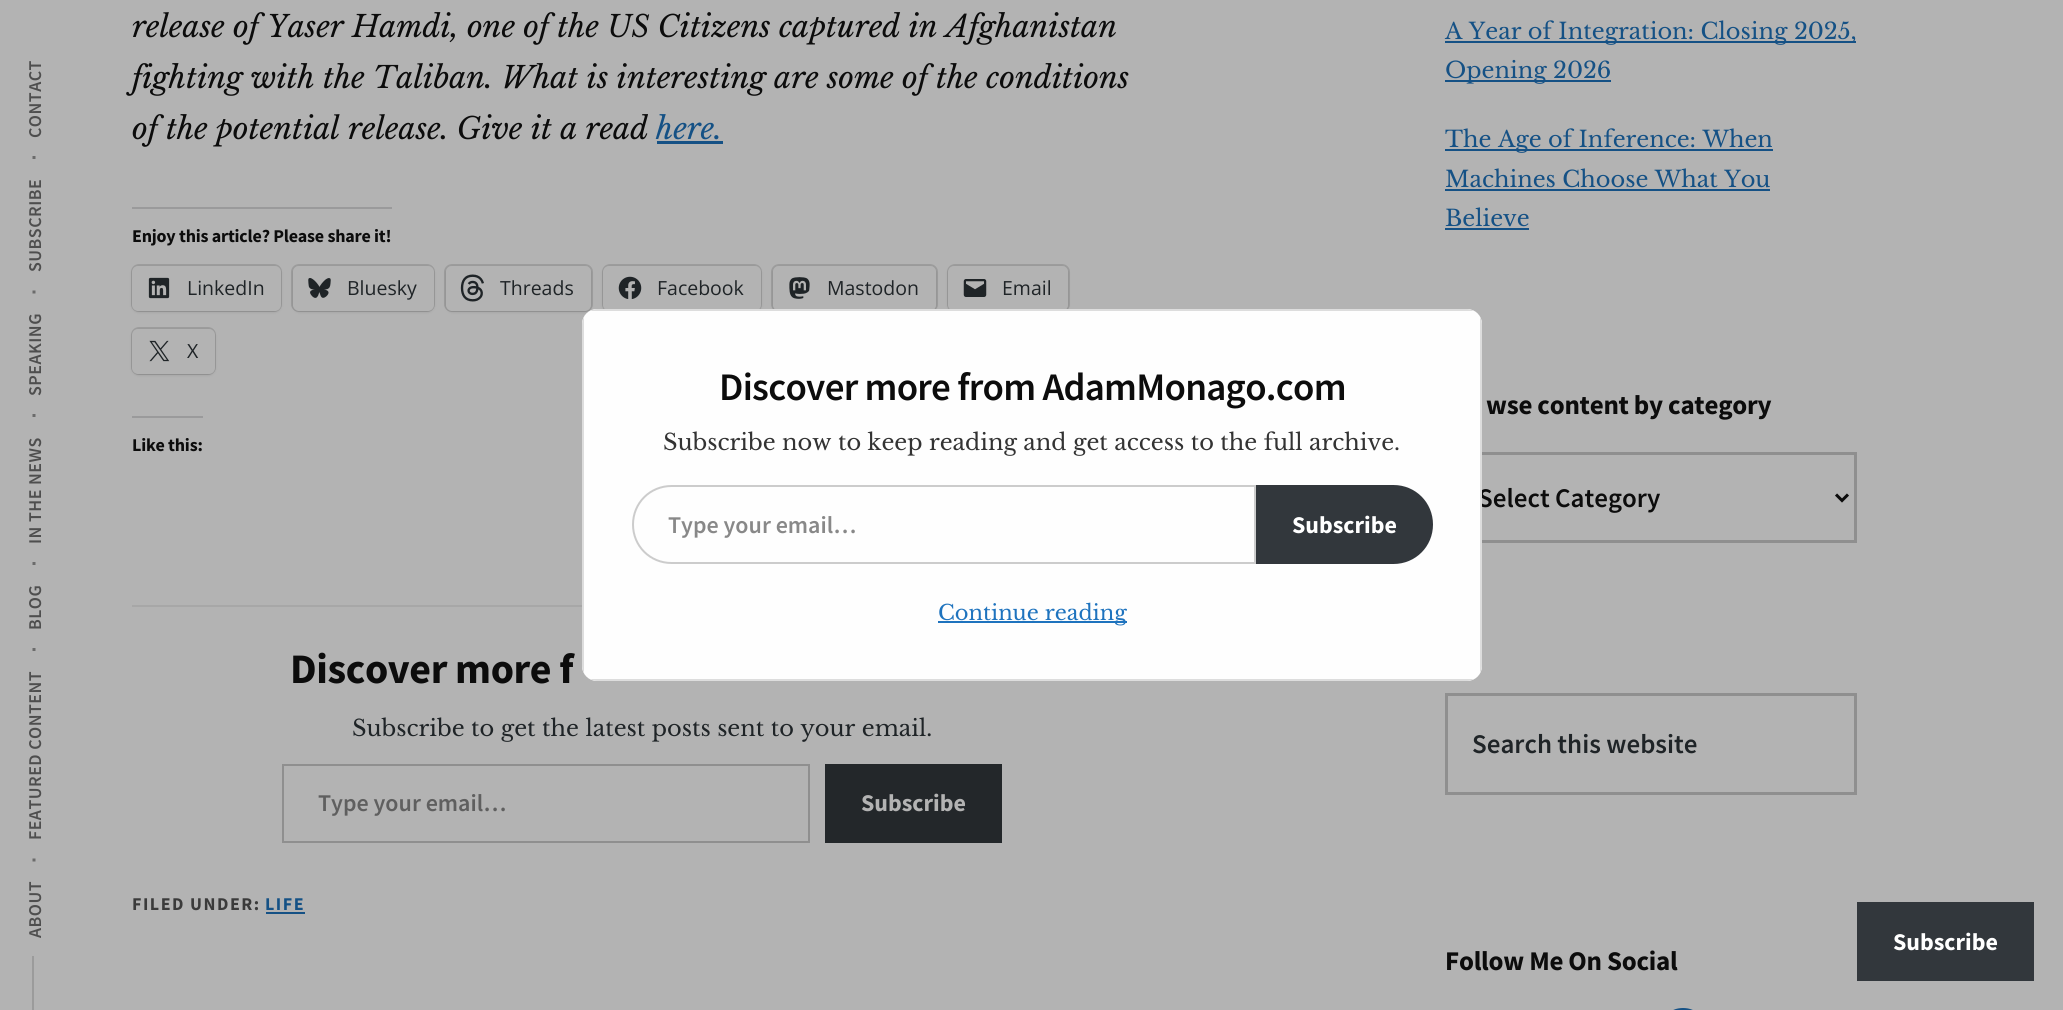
#include <cairo.h>
#include <math.h>
#include <stddef.h>


static void rgb(cairo_t *cr, int r, int g, int b)
{
	cairo_set_source_rgb(cr, r / 255.0, g / 255.0, b / 255.0);
}

static void face(cairo_t *cr, const char *family, double size, int italic, int bold)
{
	cairo_select_font_face(cr, family, italic ? CAIRO_FONT_SLANT_ITALIC : CAIRO_FONT_SLANT_NORMAL,
		bold ? CAIRO_FONT_WEIGHT_BOLD : CAIRO_FONT_WEIGHT_NORMAL);
	cairo_set_font_size(cr, size);
}

static void label(cairo_t *cr, double x, double y, const char *s)
{
	cairo_move_to(cr, x, y);
	cairo_show_text(cr, s);
}

static void tracked(cairo_t *cr, double x, double y, const char *s, double letter, double word)
{
	cairo_move_to(cr, x, y);
	while (*s) {
		char ch[5] = {0};
		int n = 0;
		do ch[n++] = *s++; while ((*s & 0xC0) == 0x80);
		cairo_show_text(cr, ch);
		cairo_rel_move_to(cr, letter + word * (*ch == ' '), 0);
	}
}

static void rect(cairo_t *cr, double x, double y, double w, double h)
{
	cairo_rectangle(cr, x, y, w, h);
	cairo_fill(cr);
}

static void rrect(cairo_t *cr, double x, double y, double w, double h, double r)
{
	cairo_new_sub_path(cr);
	cairo_arc(cr, x + w - r, y + h - r, r, 0, M_PI / 2);
	cairo_arc(cr, x + r, y + h - r, r, M_PI / 2, M_PI);
	cairo_arc(cr, x + r, y + r, r, M_PI, 1.5 * M_PI);
	cairo_arc(cr, x + w - r, y + r, r, 1.5 * M_PI, 2 * M_PI);
	cairo_close_path(cr);
}

static void soft_shadow(cairo_t *cr, double x, double y, double w, double h, double r, double blur, double alpha)
{
	cairo_push_group_with_content(cr, CAIRO_CONTENT_ALPHA);
	cairo_set_operator(cr, CAIRO_OPERATOR_SOURCE);
	for (int i = 15; i >= -15 && fmin(w, h) + blur * i / 3 > 0; i -= 2) {
		double e = blur * i / 6;
		cairo_set_source_rgba(cr, 0, 0, 0, alpha * erfc((i - 1) / 8.5) / 2);
		rrect(cr, x - e, y - e, w + 2 * e, h + 2 * e, fmax(0, fmin(r + e + blur * .6, fmin(w, h) / 2 + e)));
		cairo_fill(cr);
	}
	cairo_pattern_t *soft = cairo_pop_group(cr);
	cairo_mask(cr, soft);
	cairo_pattern_destroy(soft);
}

static void image(cairo_t *cr, const char *path, double x, double y, double w, double h)
{
	cairo_surface_t *image = cairo_image_surface_create_from_png(path);
	cairo_save(cr);
	cairo_set_source_surface(cr, image, x, y);
	cairo_rectangle(cr, x, y, w, h);
	cairo_fill(cr);
	cairo_restore(cr);
	cairo_surface_destroy(image);
}

static void draw(cairo_t *cr) {
	rgb(cr, 179, 179, 179);
	cairo_paint(cr);
	face(cr, "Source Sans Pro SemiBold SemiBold", 18, 0, 0);
	rgb(cr, 78, 78, 78);
	cairo_save(cr);
	cairo_translate(cr, 41, 138);
	cairo_rotate(cr, -90 * M_PI / 180);
	tracked(cr, 0, 0, "CONTACT", 0.5, 0);
	cairo_restore(cr);
	rgb(cr, 107, 107, 107);
	cairo_new_path(cr);
	cairo_move_to(cr, 32.5, 159);
	cairo_line_to(cr, 32.5, 156);
	cairo_line_to(cr, 35.5, 156);
	cairo_line_to(cr, 35.5, 159);
	cairo_close_path(cr);
	cairo_fill(cr);
	rgb(cr, 78, 78, 78);
	cairo_save(cr);
	cairo_translate(cr, 41, 272);
	cairo_rotate(cr, -90 * M_PI / 180);
	tracked(cr, 0, 0, "SUBSCRIBE", 0.5, 0);
	cairo_restore(cr);
	rgb(cr, 107, 107, 107);
	cairo_new_path(cr);
	cairo_move_to(cr, 32.5, 293.5);
	cairo_line_to(cr, 32.5, 290.5);
	cairo_line_to(cr, 35.5, 290.5);
	cairo_line_to(cr, 35.5, 293.5);
	cairo_close_path(cr);
	cairo_fill(cr);
	rgb(cr, 78, 78, 78);
	cairo_save(cr);
	cairo_translate(cr, 41, 396);
	cairo_rotate(cr, -90 * M_PI / 180);
	tracked(cr, 0, 0, "SPEAKING", 0.5, 0);
	cairo_restore(cr);
	rgb(cr, 107, 107, 107);
	cairo_new_path(cr);
	cairo_move_to(cr, 32.5, 417);
	cairo_line_to(cr, 32.5, 414);
	cairo_line_to(cr, 35.5, 414);
	cairo_line_to(cr, 35.5, 417);
	cairo_close_path(cr);
	cairo_fill(cr);
	rgb(cr, 78, 78, 78);
	cairo_save(cr);
	cairo_translate(cr, 41, 544);
	cairo_rotate(cr, -90 * M_PI / 180);
	tracked(cr, 0, 0, "IN THE NEWS", 0.5, 0);
	cairo_restore(cr);
	rgb(cr, 107, 107, 107);
	cairo_new_path(cr);
	cairo_move_to(cr, 32.5, 565);
	cairo_line_to(cr, 32.5, 562);
	cairo_line_to(cr, 35.5, 562);
	cairo_line_to(cr, 35.5, 565);
	cairo_close_path(cr);
	cairo_fill(cr);
	rgb(cr, 78, 78, 78);
	cairo_save(cr);
	cairo_translate(cr, 41, 630);
	cairo_rotate(cr, -90 * M_PI / 180);
	tracked(cr, 0, 0, "BLOG", 0.5, 0);
	cairo_restore(cr);
	rgb(cr, 107, 107, 107);
	cairo_new_path(cr);
	cairo_move_to(cr, 32.5, 651);
	cairo_line_to(cr, 32.5, 648);
	cairo_line_to(cr, 35.5, 648);
	cairo_line_to(cr, 35.5, 651);
	cairo_close_path(cr);
	cairo_fill(cr);
	rgb(cr, 78, 78, 78);
	cairo_save(cr);
	cairo_translate(cr, 41, 840);
	cairo_rotate(cr, -90 * M_PI / 180);
	tracked(cr, 0, 0, "FEATURED CONTENT", 0.5, 0);
	cairo_restore(cr);
	rgb(cr, 107, 107, 107);
	cairo_new_path(cr);
	cairo_move_to(cr, 32.5, 861.5);
	cairo_line_to(cr, 32.5, 858.5);
	cairo_line_to(cr, 35.5, 858.5);
	cairo_line_to(cr, 35.5, 861.5);
	cairo_close_path(cr);
	cairo_fill(cr);
	rgb(cr, 78, 78, 78);
	cairo_save(cr);
	cairo_translate(cr, 41, 938);
	cairo_rotate(cr, -90 * M_PI / 180);
	tracked(cr, 0, 0, "ABOUT", 0.5, 0);
	cairo_restore(cr);
	rgb(cr, 155, 155, 155);
	rect(cr, 32, 956, 2, 54);
	face(cr, "Libre Baskerville", 30, 1, 0);
	rgb(cr, 12, 12, 12);
	label(cr, 132, 37, "release of Yaser Hamdi, one of the US Citizens captured in Afghanistan");
	label(cr, 132, 88, "fighting with the Taliban. What is interesting are some of the conditions");
	label(cr, 132, 139, "of the potential release. Give it a read");
	rgb(cr, 21, 81, 133);
	label(cr, 656, 139, "here.");
	rect(cr, 657, 141, 66, 3);
	rgb(cr, 154, 154, 155);
	rect(cr, 132, 207, 260, 2);
	face(cr, "Source Sans Pro", 18, 0, 1);
	rgb(cr, 12, 12, 12);
	tracked(cr, 132, 242, "Enjoy this article? Please share it!", -0.2, 0);
	rrect(cr, 132, 265, 149, 46, 7);
	rgb(cr, 157, 157, 157);
	cairo_stroke(cr);
	rgb(cr, 0, 0, 0);
	soft_shadow(cr, 132, 267, 149, 45, 6, 1.5, 0.12);
	rgb(cr, 179, 179, 179);
	rrect(cr, 132, 266, 149, 45, 6);
	cairo_fill(cr);
	image(cr, "image0.png", 148, 277, 22, 22);
	face(cr, "Open Sans", 19.5, 0, 0);
	rgb(cr, 31, 36, 39);
	label(cr, 187, 295, "LinkedIn");
	rrect(cr, 292, 265, 142, 46, 7);
	rgb(cr, 157, 157, 157);
	cairo_stroke(cr);
	rgb(cr, 0, 0, 0);
	soft_shadow(cr, 293, 267, 141, 45, 6, 1.5, 0.12);
	rgb(cr, 179, 179, 179);
	rrect(cr, 293, 266, 141, 45, 6);
	cairo_fill(cr);
	image(cr, "image1.png", 308, 278, 23, 20);
	rgb(cr, 31, 36, 39);
	label(cr, 347, 295, "Bluesky");
	rrect(cr, 445, 265, 147, 46, 7);
	rgb(cr, 157, 157, 157);
	cairo_stroke(cr);
	rgb(cr, 0, 0, 0);
	soft_shadow(cr, 446, 267, 145, 45, 6, 1.5, 0.12);
	rgb(cr, 179, 179, 179);
	rrect(cr, 446, 266, 145, 45, 6);
	cairo_fill(cr);
	image(cr, "image2.png", 460, 274, 24, 28);
	rgb(cr, 31, 36, 39);
	label(cr, 500, 295, "Threads");
	rrect(cr, 603, 265, 158, 46, 7);
	rgb(cr, 157, 157, 157);
	cairo_stroke(cr);
	rgb(cr, 0, 0, 0);
	soft_shadow(cr, 603, 267, 158, 45, 6, 1.5, 0.12);
	rgb(cr, 179, 179, 179);
	rrect(cr, 603, 266, 158, 45, 6);
	cairo_fill(cr);
	image(cr, "image3.png", 618, 276, 24, 23);
	rgb(cr, 31, 36, 39);
	label(cr, 657, 295, "Facebook");
	rrect(cr, 772, 265, 165, 46, 7);
	rgb(cr, 157, 157, 157);
	cairo_stroke(cr);
	rgb(cr, 0, 0, 0);
	soft_shadow(cr, 773, 267, 163, 45, 6, 1.5, 0.12);
	rgb(cr, 179, 179, 179);
	rrect(cr, 773, 266, 163, 45, 6);
	cairo_fill(cr);
	image(cr, "image4.png", 789, 277, 21, 22);
	rgb(cr, 31, 36, 39);
	label(cr, 827, 295, "Mastodon");
	rrect(cr, 948, 265, 121, 46, 7);
	rgb(cr, 157, 157, 157);
	cairo_stroke(cr);
	rgb(cr, 0, 0, 0);
	soft_shadow(cr, 948, 267, 120, 45, 6, 1.5, 0.12);
	rgb(cr, 179, 179, 179);
	rrect(cr, 948, 266, 120, 45, 6);
	cairo_fill(cr);
	image(cr, "image5.png", 963, 279, 24, 18);
	rgb(cr, 31, 36, 39);
	label(cr, 1002, 295, "Email");
	rrect(cr, 132, 328, 83, 46, 7);
	rgb(cr, 157, 157, 157);
	cairo_stroke(cr);
	rgb(cr, 0, 0, 0);
	soft_shadow(cr, 132, 330, 83, 45, 6, 1.5, 0.12);
	rgb(cr, 179, 179, 179);
	rrect(cr, 132, 329, 83, 45, 6);
	cairo_fill(cr);
	image(cr, "image6.png", 149, 340, 21, 22);
	rgb(cr, 31, 36, 39);
	label(cr, 187, 358, "X");
	rgb(cr, 154, 154, 155);
	rect(cr, 132, 416, 71, 2);
	face(cr, "Source Sans Pro", 18, 0, 1);
	rgb(cr, 12, 12, 12);
	tracked(cr, 132, 451, "Like this:", -0.2, 0);
	rgb(cr, 167, 167, 167);
	rect(cr, 132, 605, 450, 2);
	face(cr, "Source Sans Pro", 42, 0, 1);
	rgb(cr, 12, 12, 12);
	tracked(cr, 290, 683, "Discover more f", -0.4, 0);
	face(cr, "Libre Baskerville", 22.5, 0, 0);
	rgb(cr, 31, 36, 39);
	label(cr, 352, 736, "Subscribe to get the latest posts sent to your email.");
	cairo_rectangle(cr, 283, 765, 526, 77);
	rgb(cr, 143, 143, 143);
	cairo_stroke(cr);
	face(cr, "Source Sans Pro SemiBold SemiBold", 24, 0, 0);
	rgb(cr, 95, 95, 95);
	label(cr, 318, 811, "Type your email…");
	rgb(cr, 35, 39, 42);
	rect(cr, 825, 764, 177, 79);
	face(cr, "Source Sans Pro", 24, 0, 1);
	rgb(cr, 179, 179, 179);
	label(cr, 861, 811, "Subscribe");
	face(cr, "Source Sans Pro", 18, 0, 1);
	rgb(cr, 59, 59, 59);
	tracked(cr, 132, 910, "FILED UNDER:", 1.5, 0);
	rgb(cr, 21, 81, 133);
	tracked(cr, 265, 910, "LIFE", 1.5, 0);
	rect(cr, 266, 912, 39, 2);
	rect(cr, 1445, 41, 411, 2);
	face(cr, "Libre Baskerville", 22.5, 0, 0);
	label(cr, 1445, 39, "A Year of Integration: Closing 2025,");
	rect(cr, 1445, 80, 166, 2);
	label(cr, 1445, 78, "Opening 2026");
	rect(cr, 1445, 149, 328, 2);
	label(cr, 1445, 147, "The Age of Inference: When");
	label(cr, 1445, 187, "Machines Choose What You");
	rect(cr, 1445, 189, 325, 2);
	label(cr, 1445, 226, "Believe");
	rect(cr, 1445, 228, 84, 2);
	face(cr, "Source Sans Pro", 27, 0, 1);
	rgb(cr, 12, 12, 12);
	tracked(cr, 1486, 414, "wse content by category", -0.25, 0);
	cairo_rectangle(cr, 1446.5, 453.5, 409, 88);
	rgb(cr, 143, 143, 143);
	cairo_set_line_width(cr, 3);
	cairo_stroke(cr);
	cairo_new_path(cr);
	cairo_move_to(cr, 1836, 494.5);
	cairo_line_to(cr, 1842, 500.5);
	cairo_line_to(cr, 1848, 494.5);
	rgb(cr, 12, 12, 12);
	cairo_stroke(cr);
	face(cr, "Source Sans Pro SemiBold SemiBold", 27, 0, 0);
	label(cr, 1478, 507, "Select Category");
	cairo_rectangle(cr, 1446.5, 694.5, 409, 99);
	rgb(cr, 143, 143, 143);
	cairo_stroke(cr);
	rgb(cr, 31, 36, 39);
	label(cr, 1472, 753, "Search this website");
	face(cr, "Source Sans Pro", 27, 0, 1);
	rgb(cr, 12, 12, 12);
	tracked(cr, 1445, 970, "Follow Me On Social", -0.25, 0);
	image(cr, "image7.png", 1673, 1008, 20, 2);
	rgb(cr, 254, 254, 254);
	rrect(cr, 582, 309, 900, 372, 15);
	cairo_fill(cr);
	rgb(cr, 221, 221, 221);
	cairo_set_fill_rule(cr, CAIRO_FILL_RULE_EVEN_ODD);
	cairo_new_path(cr);
	cairo_move_to(cr, 582, 324);
	cairo_line_to(cr, 582, 666);
	cairo_curve_to(cr, 582, 669, 583, 671, 584, 673);
	cairo_line_to(cr, 584, 317);
	cairo_curve_to(cr, 583, 319, 582, 321, 582, 324);
	cairo_close_path(cr);
	cairo_move_to(cr, 597, 309);
	cairo_curve_to(cr, 594, 309, 592, 310, 590, 311);
	cairo_line_to(cr, 1474, 311);
	cairo_curve_to(cr, 1472, 310, 1470, 309, 1467, 309);
	cairo_close_path(cr);
	cairo_move_to(cr, 1482, 324);
	cairo_curve_to(cr, 1482, 321, 1481, 319, 1480, 317);
	cairo_line_to(cr, 1480, 673);
	cairo_curve_to(cr, 1481, 671, 1482, 669, 1482, 666);
	cairo_close_path(cr);
	cairo_move_to(cr, 1467, 681);
	cairo_curve_to(cr, 1470, 681, 1472, 680, 1474, 679);
	cairo_line_to(cr, 590, 679);
	cairo_curve_to(cr, 592, 680, 594, 681, 597, 681);
	cairo_close_path(cr);
	cairo_fill(cr);
	face(cr, "Source Sans Pro SemiBold SemiBold", 39, 0, 0);
	rgb(cr, 12, 12, 12);
	tracked(cr, 719, 400, "Discover more from AdamMonago.com", -0.75, 0);
	face(cr, "Libre Baskerville", 22.5, 0, 0);
	rgb(cr, 51, 51, 51);
	label(cr, 663, 450, "Subscribe now to keep reading and get access to the full archive.");
	cairo_new_path(cr);
	cairo_move_to(cr, 671.5, 486);
	cairo_line_to(cr, 1255, 486);
	cairo_line_to(cr, 1255, 563);
	cairo_line_to(cr, 671.5, 563);
	cairo_curve_to(cr, 650, 563, 633, 546, 633, 524.5);
	cairo_curve_to(cr, 633, 503, 650, 486, 671.5, 486);
	cairo_close_path(cr);
	rgb(cr, 204, 204, 204);
	cairo_set_line_width(cr, 2);
	cairo_stroke(cr);
	face(cr, "Source Sans Pro SemiBold SemiBold", 24, 0, 0);
	rgb(cr, 136, 136, 136);
	label(cr, 668, 533, "Type your email…");
	rgb(cr, 50, 55, 60);
	cairo_new_path(cr);
	cairo_move_to(cr, 1256, 485);
	cairo_line_to(cr, 1393.5, 485);
	cairo_curve_to(cr, 1415.5, 485, 1433, 502.5, 1433, 524.5);
	cairo_curve_to(cr, 1433, 546.5, 1415.5, 564, 1393.5, 564);
	cairo_line_to(cr, 1256, 564);
	cairo_close_path(cr);
	cairo_fill(cr);
	face(cr, "Source Sans Pro", 24, 0, 1);
	rgb(cr, 255, 255, 255);
	label(cr, 1292, 533, "Subscribe");
	rgb(cr, 30, 115, 190);
	rect(cr, 938, 621, 189, 2);
	face(cr, "Libre Baskerville", 21, 0, 0);
	label(cr, 938, 620, "Continue reading");
	rgb(cr, 50, 55, 60);
	rect(cr, 1857, 902, 177, 79);
	face(cr, "Source Sans Pro", 24, 0, 1);
	rgb(cr, 255, 255, 255);
	label(cr, 1893, 950, "Subscribe");
}

int main(void) {
	cairo_surface_t *surface = cairo_image_surface_create(CAIRO_FORMAT_RGB24, 2063, 1010);
	cairo_t *cr = cairo_create(surface);
	cairo_font_options_t *options = cairo_font_options_create();
	cairo_font_options_set_hint_metrics(options, CAIRO_HINT_METRICS_OFF);
	cairo_font_options_set_hint_style(options, CAIRO_HINT_STYLE_NONE);
	cairo_set_font_options(cr, options);
	cairo_set_miter_limit(cr, 4);
	draw(cr);
	cairo_surface_write_to_png(surface, "render.png");
	cairo_font_options_destroy(options);
	cairo_destroy(cr);
	cairo_surface_destroy(surface);
	return 0;
}
